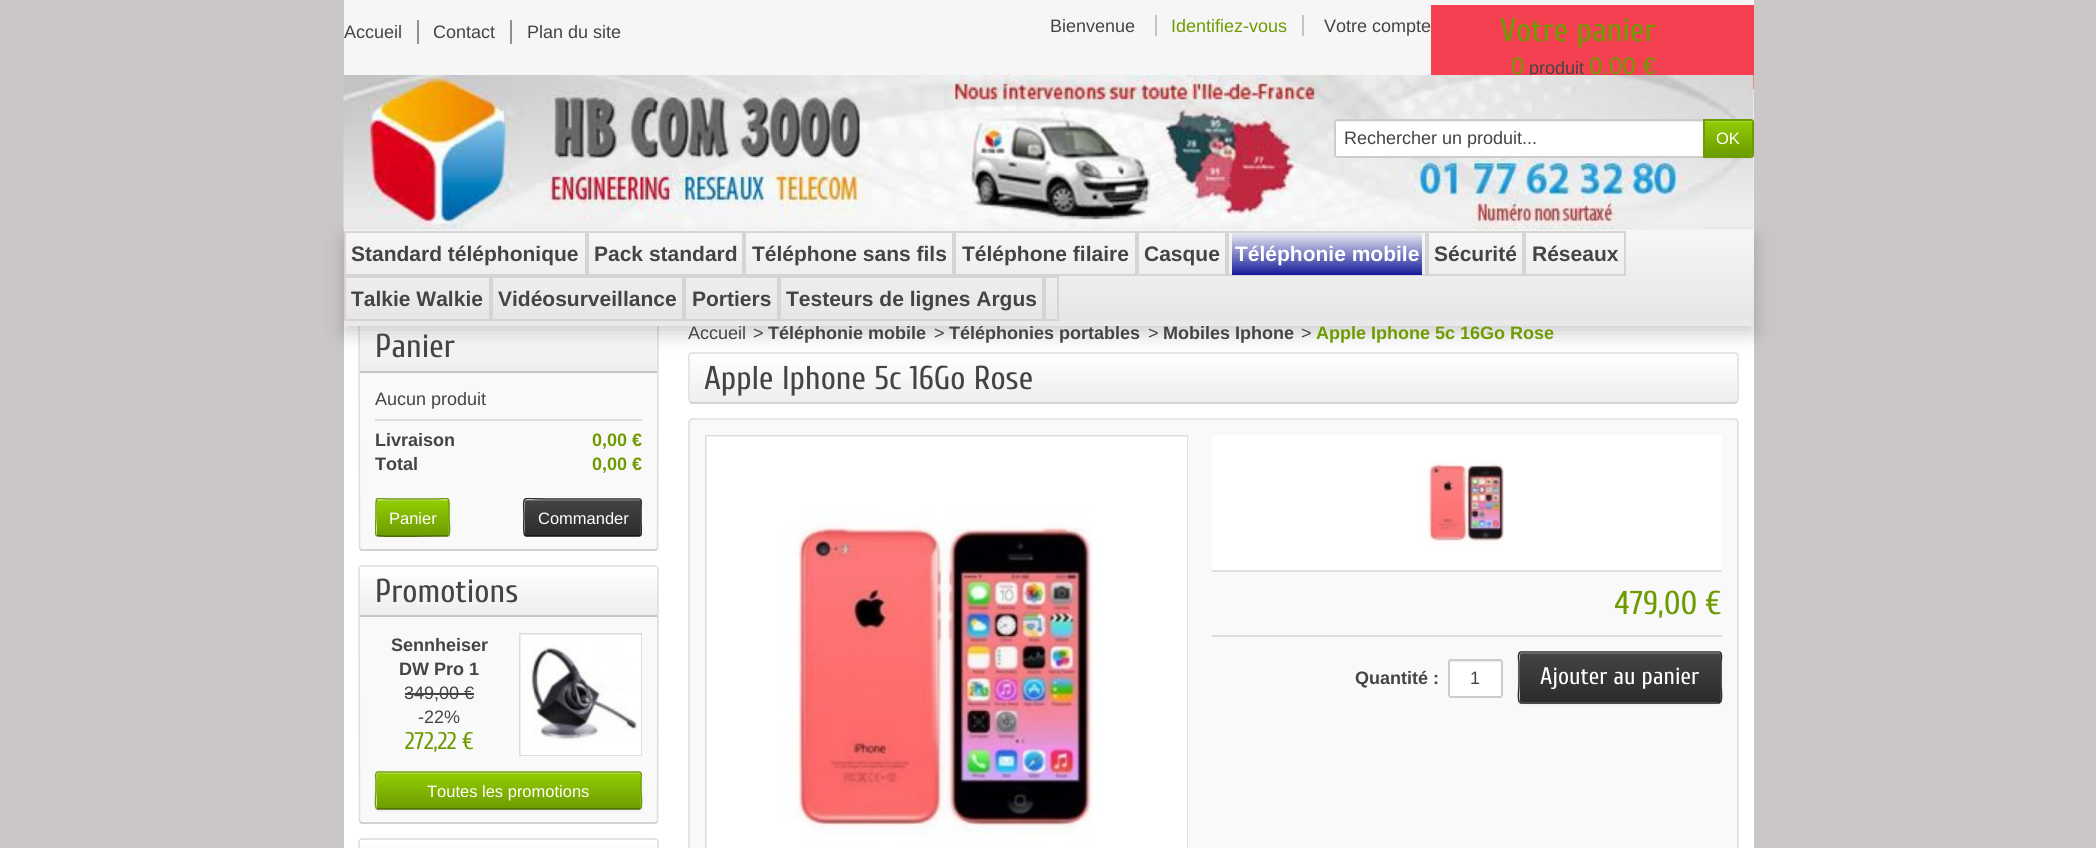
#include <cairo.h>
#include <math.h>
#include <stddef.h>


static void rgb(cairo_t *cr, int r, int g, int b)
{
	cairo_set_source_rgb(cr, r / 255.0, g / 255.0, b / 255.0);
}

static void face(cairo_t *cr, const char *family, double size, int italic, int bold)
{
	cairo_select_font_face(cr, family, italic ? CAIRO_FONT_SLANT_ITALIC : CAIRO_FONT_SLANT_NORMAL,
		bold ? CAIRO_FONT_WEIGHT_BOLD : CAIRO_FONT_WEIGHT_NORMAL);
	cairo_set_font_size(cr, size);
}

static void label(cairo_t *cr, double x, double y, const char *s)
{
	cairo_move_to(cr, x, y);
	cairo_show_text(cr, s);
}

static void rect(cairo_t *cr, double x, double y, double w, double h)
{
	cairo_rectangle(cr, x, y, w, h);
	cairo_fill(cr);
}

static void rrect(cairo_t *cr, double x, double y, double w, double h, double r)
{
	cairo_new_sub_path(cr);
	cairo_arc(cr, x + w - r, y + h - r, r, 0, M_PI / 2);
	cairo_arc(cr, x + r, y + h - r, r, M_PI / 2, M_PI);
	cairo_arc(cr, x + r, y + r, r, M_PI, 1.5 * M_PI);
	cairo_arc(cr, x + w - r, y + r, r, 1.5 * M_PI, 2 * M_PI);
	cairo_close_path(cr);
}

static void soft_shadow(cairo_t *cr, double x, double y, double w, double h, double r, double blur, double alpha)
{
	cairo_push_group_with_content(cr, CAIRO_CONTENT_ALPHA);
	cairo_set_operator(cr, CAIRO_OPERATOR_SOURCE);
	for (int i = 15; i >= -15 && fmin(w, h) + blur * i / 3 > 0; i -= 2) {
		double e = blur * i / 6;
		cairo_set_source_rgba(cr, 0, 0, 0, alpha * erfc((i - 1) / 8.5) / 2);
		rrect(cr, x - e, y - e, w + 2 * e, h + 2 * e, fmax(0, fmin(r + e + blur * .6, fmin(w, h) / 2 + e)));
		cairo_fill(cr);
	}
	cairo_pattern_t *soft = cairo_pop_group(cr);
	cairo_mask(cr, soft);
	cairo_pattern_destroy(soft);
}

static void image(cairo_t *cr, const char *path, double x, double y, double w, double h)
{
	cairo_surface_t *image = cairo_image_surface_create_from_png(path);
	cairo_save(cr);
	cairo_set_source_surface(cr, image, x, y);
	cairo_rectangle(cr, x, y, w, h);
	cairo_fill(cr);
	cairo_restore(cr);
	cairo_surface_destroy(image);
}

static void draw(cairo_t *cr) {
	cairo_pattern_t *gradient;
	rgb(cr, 204, 199, 199);
	cairo_paint(cr);
	rgb(cr, 246, 246, 246);
	rect(cr, 344, 0, 1410, 225);
	face(cr, "Liberation Sans", 18, 0, 0);
	rgb(cr, 68, 68, 68);
	label(cr, 344, 38, "Accueil");
	rgb(cr, 145, 145, 145);
	rect(cr, 417, 20, 2, 24);
	rgb(cr, 68, 68, 68);
	label(cr, 433, 38, "Contact");
	rgb(cr, 145, 145, 145);
	rect(cr, 510, 20, 2, 24);
	rgb(cr, 68, 68, 68);
	label(cr, 527, 38, "Plan du site");
	label(cr, 1050, 32, "Bienvenue");
	rgb(cr, 110, 155, 2);
	label(cr, 1171, 32, "Identifiez-vous");
	rgb(cr, 196, 196, 196);
	rect(cr, 1302, 15, 2, 21);
	rect(cr, 1155, 15, 2, 21);
	rgb(cr, 68, 68, 68);
	label(cr, 1324, 32, "Votre compte");
	rgb(cr, 244, 64, 81);
	rect(cr, 1431, 5, 323, 84);
	face(cr, "Cuprum", 33, 0, 0);
	rgb(cr, 110, 155, 2);
	label(cr, 1500, 41, "Votre panier");
	face(cr, "Liberation Sans", 24, 0, 0);
	label(cr, 1511, 74, "0");
	face(cr, "Liberation Sans", 18, 0, 0);
	rgb(cr, 68, 68, 68);
	label(cr, 1529, 74, "produit");
	face(cr, "Liberation Sans", 24, 0, 0);
	rgb(cr, 110, 155, 2);
	label(cr, 1589, 74, "0.00 €");
	rgb(cr, 255, 255, 255);
	rect(cr, 344, 225, 1410, 623);
	image(cr, "image0.png", 343, 75, 1411, 155);
	rrect(cr, 1334, 119, 420, 39, 3);
	cairo_fill(cr);
	rgb(cr, 236, 236, 236);
	cairo_new_path(cr);
	cairo_move_to(cr, 1336, 122);
	cairo_line_to(cr, 1750, 122);
	cairo_curve_to(cr, 1751, 122, 1752, 122, 1752, 123);
	cairo_curve_to(cr, 1752, 122, 1752, 120, 1750, 120);
	cairo_line_to(cr, 1336, 120);
	cairo_line_to(cr, 1335, 121);
	cairo_line_to(cr, 1335, 123);
	cairo_close_path(cr);
	cairo_fill(cr);
	rrect(cr, 1335, 120, 418, 37, 2);
	rgb(cr, 204, 204, 204);
	cairo_stroke(cr);
	face(cr, "Liberation Sans", 18, 0, 0);
	rgb(cr, 68, 68, 68);
	label(cr, 1344, 144, "Rechercher un produit...");
	rgb(cr, 0, 0, 0);
	soft_shadow(cr, 1703, 120, 51, 39, 3, 1.5, 0.05);
	gradient = cairo_pattern_create_linear(1728, 120, 1728, 156);
	cairo_pattern_add_color_stop_rgba(gradient, 0, 0.573, 0.804, 0.012, 1);
	cairo_pattern_add_color_stop_rgba(gradient, 1, 0.431, 0.608, 0.008, 1);
	cairo_set_source(cr, gradient);
	cairo_pattern_destroy(gradient);
	cairo_new_path(cr);
	cairo_move_to(cr, 1704, 120);
	cairo_line_to(cr, 1750.5, 120);
	cairo_curve_to(cr, 1751.5, 120, 1752, 120.5, 1752, 121.5);
	cairo_line_to(cr, 1752, 154.5);
	cairo_curve_to(cr, 1752, 155.5, 1751.5, 156, 1750.5, 156);
	cairo_line_to(cr, 1704, 156);
	cairo_close_path(cr);
	cairo_fill(cr);
	rgb(cr, 167, 214, 53);
	cairo_new_path(cr);
	cairo_move_to(cr, 1704, 122);
	cairo_line_to(cr, 1752, 122);
	cairo_line_to(cr, 1752, 123);
	cairo_line_to(cr, 1752, 122);
	cairo_curve_to(cr, 1752, 121, 1751, 120, 1750, 120);
	cairo_line_to(cr, 1704, 120);
	cairo_close_path(cr);
	cairo_fill(cr);
	cairo_new_path(cr);
	cairo_move_to(cr, 1704, 120);
	cairo_line_to(cr, 1751, 120);
	cairo_curve_to(cr, 1752, 120, 1753, 121, 1753, 122);
	cairo_line_to(cr, 1753, 155);
	cairo_curve_to(cr, 1753, 156, 1752, 157, 1751, 157);
	cairo_line_to(cr, 1704, 157);
	cairo_close_path(cr);
	rgb(cr, 110, 155, 2);
	cairo_stroke(cr);
	face(cr, "Liberation Sans", 16.5, 0, 0);
	rgb(cr, 255, 255, 255);
	label(cr, 1716, 144, "OK");
	rgb(cr, 249, 249, 249);
	rrect(cr, 359, 321, 300, 230, 3);
	cairo_fill(cr);
	cairo_new_path(cr);
	cairo_move_to(cr, 657, 549);
	cairo_line_to(cr, 655.5, 550);
	cairo_line_to(cr, 361.5, 550);
	cairo_line_to(cr, 360, 549);
	rgb(cr, 196, 196, 196);
	cairo_set_line_width(cr, 1.5);
	cairo_stroke(cr);
	cairo_new_path(cr);
	cairo_move_to(cr, 360, 549);
	cairo_line_to(cr, 359.5, 547.5);
	cairo_line_to(cr, 359, 324);
	cairo_curve_to(cr, 359.5, 323, 360.5, 322, 361.5, 322);
	cairo_line_to(cr, 655.5, 322);
	cairo_curve_to(cr, 656.5, 322, 657.5, 323, 658, 324);
	cairo_line_to(cr, 657.5, 547.5);
	cairo_line_to(cr, 657, 549);
	rgb(cr, 221, 221, 221);
	cairo_stroke(cr);
	gradient = cairo_pattern_create_linear(509, 323, 509, 371);
	cairo_pattern_add_color_stop_rgba(gradient, 0, 1, 1, 1, 1);
	cairo_pattern_add_color_stop_rgba(gradient, 1, 0.933, 0.933, 0.933, 1);
	cairo_set_source(cr, gradient);
	cairo_pattern_destroy(gradient);
	rect(cr, 360, 326, 297, 45);
	gradient = cairo_pattern_create_linear(1214, 354, 1214, 402);
	cairo_pattern_add_color_stop_rgba(gradient, 0, 1, 1, 1, 1);
	cairo_pattern_add_color_stop_rgba(gradient, 1, 0.933, 0.933, 0.933, 1);
	cairo_set_source(cr, gradient);
	cairo_pattern_destroy(gradient);
	rrect(cr, 690, 354, 1047, 48, 1.5);
	cairo_fill(cr);
	cairo_new_path(cr);
	cairo_move_to(cr, 1737, 402);
	cairo_line_to(cr, 1735.5, 403);
	cairo_line_to(cr, 691.5, 403);
	cairo_line_to(cr, 690, 402);
	rgb(cr, 196, 196, 196);
	cairo_stroke(cr);
	cairo_new_path(cr);
	cairo_move_to(cr, 690, 402);
	cairo_curve_to(cr, 688, 400.5, 689, 381.5, 689, 378);
	cairo_line_to(cr, 689, 363);
	cairo_curve_to(cr, 689, 362.5, 687.5, 353.5, 691.5, 353);
	cairo_line_to(cr, 1735.5, 353);
	cairo_curve_to(cr, 1739.5, 353.5, 1738, 362.5, 1738, 363);
	cairo_line_to(cr, 1738, 378);
	cairo_curve_to(cr, 1738, 381.5, 1739, 400.5, 1737, 402);
	rgb(cr, 221, 221, 221);
	cairo_stroke(cr);
	rgb(cr, 0, 0, 0);
	soft_shadow(cr, 344, 239, 1410, 94, 0, 10, 0.2);
	gradient = cairo_pattern_create_linear(344, 231, 344, 321);
	cairo_pattern_add_color_stop_rgba(gradient, 0, 0.965, 0.965, 0.965, 1);
	cairo_pattern_add_color_stop_rgba(gradient, 1, 0.902, 0.902, 0.902, 1);
	cairo_set_source(cr, gradient);
	cairo_pattern_destroy(gradient);
	rect(cr, 346, 231, 1408, 90);
	face(cr, "Liberation Sans", 18, 0, 0);
	rgb(cr, 68, 68, 68);
	label(cr, 688, 339, "Accueil");
	face(cr, "Liberation Sans", 18, 0, 1);
	label(cr, 768, 339, "Téléphonie mobile");
	label(cr, 949, 339, "Téléphonies portables");
	label(cr, 1163, 339, "Mobiles Iphone");
	rgb(cr, 110, 155, 2);
	label(cr, 1316, 339, "Apple Iphone 5c 16Go Rose");
	rgb(cr, 233, 233, 233);
	rect(cr, 344, 321, 1410, 5);
	cairo_rectangle(cr, 345, 232, 241, 43);
	rgb(cr, 214, 212, 212);
	cairo_set_line_width(cr, 2);
	cairo_stroke(cr);
	face(cr, "Liberation Sans", 21, 0, 1);
	rgb(cr, 68, 68, 68);
	label(cr, 351, 261, "Standard téléphonique");
	cairo_rectangle(cr, 588, 232, 155, 43);
	rgb(cr, 214, 212, 212);
	cairo_stroke(cr);
	rgb(cr, 68, 68, 68);
	label(cr, 594, 261, "Pack standard");
	cairo_rectangle(cr, 745, 232, 208, 43);
	rgb(cr, 214, 212, 212);
	cairo_stroke(cr);
	rgb(cr, 68, 68, 68);
	label(cr, 752, 261, "Téléphone sans fils");
	cairo_rectangle(cr, 955, 232, 181, 43);
	rgb(cr, 214, 212, 212);
	cairo_stroke(cr);
	rgb(cr, 68, 68, 68);
	label(cr, 962, 261, "Téléphone filaire");
	cairo_rectangle(cr, 1138, 232, 88, 43);
	rgb(cr, 214, 212, 212);
	cairo_stroke(cr);
	rgb(cr, 68, 68, 68);
	label(cr, 1144, 261, "Casque");
	cairo_rectangle(cr, 1228, 232, 198, 43);
	rgb(cr, 214, 212, 212);
	cairo_stroke(cr);
	gradient = cairo_pattern_create_linear(1232, 233, 1232, 275);
	cairo_pattern_add_color_stop_rgba(gradient, 0, 0.91, 0.918, 0.941, 1);
	cairo_pattern_add_color_stop_rgba(gradient, 1, 0.078, 0.102, 0.6, 1);
	cairo_set_source(cr, gradient);
	cairo_pattern_destroy(gradient);
	rect(cr, 1232, 233, 190, 42);
	rgb(cr, 255, 255, 255);
	label(cr, 1235, 261, "Téléphonie mobile");
	cairo_rectangle(cr, 1428, 232, 95, 43);
	rgb(cr, 214, 212, 212);
	cairo_stroke(cr);
	rgb(cr, 68, 68, 68);
	label(cr, 1434, 261, "Sécurité");
	cairo_rectangle(cr, 1525, 232, 100, 43);
	rgb(cr, 214, 212, 212);
	cairo_stroke(cr);
	rgb(cr, 68, 68, 68);
	label(cr, 1532, 261, "Réseaux");
	cairo_rectangle(cr, 345, 277, 145, 43);
	rgb(cr, 214, 212, 212);
	cairo_stroke(cr);
	rgb(cr, 68, 68, 68);
	label(cr, 351, 306, "Talkie Walkie");
	cairo_rectangle(cr, 492, 277, 191, 43);
	rgb(cr, 214, 212, 212);
	cairo_stroke(cr);
	rgb(cr, 68, 68, 68);
	label(cr, 498, 306, "Vidéosurveillance");
	cairo_rectangle(cr, 685, 277, 93, 43);
	rgb(cr, 214, 212, 212);
	cairo_stroke(cr);
	rgb(cr, 68, 68, 68);
	label(cr, 692, 306, "Portiers");
	cairo_rectangle(cr, 780, 277, 263, 43);
	rgb(cr, 214, 212, 212);
	cairo_stroke(cr);
	rgb(cr, 68, 68, 68);
	label(cr, 786, 306, "Testeurs de lignes Argus");
	cairo_rectangle(cr, 1045, 277, 13, 43);
	rgb(cr, 214, 212, 212);
	cairo_stroke(cr);
	rgb(cr, 196, 196, 196);
	rect(cr, 360, 371, 297, 2);
	face(cr, "Cuprum", 33, 0, 0);
	rgb(cr, 68, 68, 68);
	label(cr, 375, 357, "Panier");
	face(cr, "Liberation Sans", 18, 0, 0);
	label(cr, 375, 405, "Aucun produit");
	rgb(cr, 221, 221, 221);
	rect(cr, 375, 419, 267, 2);
	face(cr, "Liberation Sans", 18, 0, 1);
	rgb(cr, 68, 68, 68);
	label(cr, 375, 446, "Livraison");
	rgb(cr, 110, 155, 2);
	label(cr, 592, 446, "0,00 €");
	rgb(cr, 68, 68, 68);
	label(cr, 375, 470, "Total");
	rgb(cr, 110, 155, 2);
	label(cr, 592, 470, "0,00 €");
	cairo_save(cr);
	cairo_rectangle(cr, 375, 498, 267, 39);
	cairo_clip(cr);
	rgb(cr, 0, 0, 0);
	soft_shadow(cr, 375, 500, 75, 39, 3, 1.5, 0.05);
	cairo_restore(cr);
	gradient = cairo_pattern_create_linear(413, 500, 413, 536);
	cairo_pattern_add_color_stop_rgba(gradient, 0, 0.573, 0.804, 0.012, 1);
	cairo_pattern_add_color_stop_rgba(gradient, 1, 0.431, 0.608, 0.008, 1);
	cairo_set_source(cr, gradient);
	cairo_pattern_destroy(gradient);
	rrect(cr, 377, 500, 72, 36, 1.5);
	cairo_fill(cr);
	cairo_set_source_rgba(cr, 1, 1, 1, 0.2);
	cairo_new_path(cr);
	cairo_move_to(cr, 378, 501);
	cairo_line_to(cr, 447, 501);
	cairo_curve_to(cr, 448, 501, 448, 502, 448, 502);
	cairo_line_to(cr, 448, 536);
	cairo_curve_to(cr, 450, 535, 449, 525, 449, 524);
	cairo_line_to(cr, 449, 507);
	cairo_curve_to(cr, 449, 497, 449, 500, 436, 500);
	cairo_line_to(cr, 378, 500);
	cairo_line_to(cr, 377, 501);
	cairo_close_path(cr);
	cairo_fill(cr);
	cairo_save(cr);
	cairo_rectangle(cr, 375, 498, 267, 39);
	cairo_clip(cr);
	cairo_new_path(cr);
	cairo_move_to(cr, 448.5, 535.5);
	cairo_line_to(cr, 447, 536);
	cairo_line_to(cr, 435.5, 536);
	cairo_curve_to(cr, 429, 536, 378.5, 537, 376.5, 535.5);
	rgb(cr, 74, 105, 1);
	cairo_set_line_width(cr, 1.5);
	cairo_stroke(cr);
	cairo_new_path(cr);
	cairo_move_to(cr, 376.5, 535.5);
	cairo_curve_to(cr, 374.5, 534, 376, 520.5, 376, 517.5);
	cairo_line_to(cr, 376, 506.5);
	cairo_curve_to(cr, 376, 495.5, 376.5, 499, 389.5, 499);
	cairo_line_to(cr, 435.5, 499);
	cairo_curve_to(cr, 448.5, 499, 449, 495.5, 449, 506.5);
	cairo_line_to(cr, 449, 517.5);
	cairo_curve_to(cr, 449, 520.5, 450.5, 534, 448.5, 535.5);
	rgb(cr, 110, 155, 2);
	cairo_stroke(cr);
	cairo_restore(cr);
	face(cr, "Liberation Sans", 16.5, 0, 0);
	rgb(cr, 255, 255, 255);
	label(cr, 389, 524, "Panier");
	cairo_save(cr);
	cairo_rectangle(cr, 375, 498, 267, 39);
	cairo_clip(cr);
	rgb(cr, 0, 0, 0);
	soft_shadow(cr, 524, 500, 118, 39, 3, 1.5, 0.05);
	cairo_restore(cr);
	gradient = cairo_pattern_create_linear(583, 500, 583, 536);
	cairo_pattern_add_color_stop_rgba(gradient, 0, 0.267, 0.267, 0.267, 1);
	cairo_pattern_add_color_stop_rgba(gradient, 1, 0.169, 0.169, 0.169, 1);
	cairo_set_source(cr, gradient);
	cairo_pattern_destroy(gradient);
	rrect(cr, 525, 500, 116, 36, 1.5);
	cairo_fill(cr);
	cairo_set_source_rgba(cr, 1, 1, 1, 0.2);
	cairo_new_path(cr);
	cairo_move_to(cr, 526, 501);
	cairo_line_to(cr, 639, 501);
	cairo_curve_to(cr, 640, 501, 640, 502, 640, 502);
	cairo_line_to(cr, 640, 536);
	cairo_curve_to(cr, 641, 536, 641, 535, 641, 534);
	cairo_line_to(cr, 641, 502);
	cairo_curve_to(cr, 641, 501, 640, 500, 640, 500);
	cairo_line_to(cr, 526, 500);
	cairo_curve_to(cr, 526, 500, 525, 501, 525, 502);
	cairo_close_path(cr);
	cairo_fill(cr);
	cairo_new_path(cr);
	cairo_move_to(cr, 640.5, 535.5);
	cairo_line_to(cr, 639, 536);
	cairo_line_to(cr, 545, 536);
	cairo_line_to(cr, 526.5, 536);
	cairo_line_to(cr, 525, 535.5);
	rgb(cr, 17, 17, 17);
	cairo_set_line_width(cr, 1.5);
	cairo_stroke(cr);
	cairo_save(cr);
	cairo_rectangle(cr, 375, 498, 267, 39);
	cairo_clip(cr);
	cairo_new_path(cr);
	cairo_move_to(cr, 525, 535.5);
	cairo_curve_to(cr, 523, 534, 524, 520.5, 524, 517.5);
	cairo_curve_to(cr, 524, 493.5, 519.5, 499, 545, 499);
	cairo_line_to(cr, 639, 499);
	cairo_curve_to(cr, 642.5, 499, 641, 505, 641, 506.5);
	cairo_line_to(cr, 641, 523);
	cairo_curve_to(cr, 641, 525, 642.5, 534, 640.5, 535.5);
	rgb(cr, 43, 43, 43);
	cairo_stroke(cr);
	cairo_restore(cr);
	rgb(cr, 255, 255, 255);
	label(cr, 538, 524, "Commander");
	rgb(cr, 249, 249, 249);
	rrect(cr, 359, 566, 300, 258, 3);
	cairo_fill(cr);
	cairo_new_path(cr);
	cairo_move_to(cr, 657, 822);
	cairo_line_to(cr, 655.5, 823);
	cairo_line_to(cr, 361.5, 823);
	cairo_line_to(cr, 360, 822);
	rgb(cr, 196, 196, 196);
	cairo_stroke(cr);
	cairo_new_path(cr);
	cairo_move_to(cr, 360, 822);
	cairo_line_to(cr, 359.5, 820.5);
	cairo_line_to(cr, 359, 568.5);
	cairo_curve_to(cr, 359.5, 567.5, 360.5, 566.5, 361.5, 566);
	cairo_line_to(cr, 655.5, 566);
	cairo_curve_to(cr, 656.5, 566.5, 657.5, 567.5, 658, 568.5);
	cairo_line_to(cr, 657.5, 820.5);
	cairo_line_to(cr, 657, 822);
	rgb(cr, 221, 221, 221);
	cairo_stroke(cr);
	gradient = cairo_pattern_create_linear(509, 567, 509, 615);
	cairo_pattern_add_color_stop_rgba(gradient, 0, 1, 1, 1, 1);
	cairo_pattern_add_color_stop_rgba(gradient, 1, 0.933, 0.933, 0.933, 1);
	cairo_set_source(cr, gradient);
	cairo_pattern_destroy(gradient);
	rect(cr, 360, 567, 297, 48);
	rgb(cr, 196, 196, 196);
	rect(cr, 360, 615, 297, 2);
	face(cr, "Cuprum", 33, 0, 0);
	rgb(cr, 68, 68, 68);
	label(cr, 375, 602, "Promotions");
	face(cr, "Liberation Sans", 18, 0, 1);
	label(cr, 391, 651, "Sennheiser");
	label(cr, 399, 675, "DW Pro 1");
	cairo_rectangle(cr, 520, 634, 121, 121);
	rgb(cr, 221, 221, 221);
	cairo_set_line_width(cr, 2);
	cairo_stroke(cr);
	rgb(cr, 255, 255, 255);
	rect(cr, 521, 635, 120, 120);
	image(cr, "image1.png", 520, 634, 121, 121);
	face(cr, "Liberation Sans", 18, 0, 0);
	rgb(cr, 68, 68, 68);
	label(cr, 404, 699, "349,00 €");
	rect(cr, 405, 693, 69, 2);
	label(cr, 418, 723, "-22%");
	face(cr, "Cuprum", 24, 0, 0);
	rgb(cr, 110, 155, 2);
	label(cr, 405, 749, "272,22 €");
	rgb(cr, 0, 0, 0);
	soft_shadow(cr, 375, 773, 267, 39, 3, 1.5, 0.05);
	gradient = cairo_pattern_create_linear(509, 773, 509, 809);
	cairo_pattern_add_color_stop_rgba(gradient, 0, 0.573, 0.804, 0.012, 1);
	cairo_pattern_add_color_stop_rgba(gradient, 1, 0.431, 0.608, 0.008, 1);
	cairo_set_source(cr, gradient);
	cairo_pattern_destroy(gradient);
	rrect(cr, 377, 773, 264, 36, 1.5);
	cairo_fill(cr);
	cairo_set_source_rgba(cr, 1, 1, 1, 0.2);
	cairo_new_path(cr);
	cairo_move_to(cr, 378, 774);
	cairo_line_to(cr, 639, 774);
	cairo_curve_to(cr, 641, 774, 640, 785, 640, 787);
	cairo_line_to(cr, 640, 809);
	cairo_curve_to(cr, 642, 808, 641, 798, 641, 796);
	cairo_line_to(cr, 641, 774);
	cairo_line_to(cr, 640, 773);
	cairo_line_to(cr, 378, 773);
	cairo_curve_to(cr, 378, 773, 377, 774, 377, 774);
	cairo_close_path(cr);
	cairo_fill(cr);
	cairo_new_path(cr);
	cairo_move_to(cr, 640.5, 808.5);
	cairo_line_to(cr, 639, 809);
	cairo_line_to(cr, 378, 809);
	cairo_line_to(cr, 376.5, 808.5);
	rgb(cr, 74, 105, 1);
	cairo_set_line_width(cr, 1.5);
	cairo_stroke(cr);
	cairo_new_path(cr);
	cairo_move_to(cr, 376.5, 808.5);
	cairo_curve_to(cr, 374.5, 807, 376, 793.5, 376, 790.5);
	cairo_line_to(cr, 376, 779.5);
	cairo_curve_to(cr, 376, 778, 374.5, 772, 378, 772);
	cairo_line_to(cr, 639, 772);
	cairo_curve_to(cr, 642.5, 772, 641, 778, 641, 779.5);
	cairo_line_to(cr, 641, 790.5);
	cairo_curve_to(cr, 641, 793.5, 642.5, 807, 640.5, 808.5);
	rgb(cr, 110, 155, 2);
	cairo_stroke(cr);
	face(cr, "Liberation Sans", 16.5, 0, 0);
	rgb(cr, 255, 255, 255);
	label(cr, 427, 797, "Toutes les promotions");
	rgb(cr, 249, 249, 249);
	rrect(cr, 359, 839, 300, 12, 3);
	cairo_fill(cr);
	cairo_new_path(cr);
	cairo_move_to(cr, 360, 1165.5);
	cairo_line_to(cr, 359, 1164);
	cairo_line_to(cr, 359, 841.5);
	cairo_line_to(cr, 360, 840);
	cairo_line_to(cr, 361.5, 839);
	cairo_line_to(cr, 655.5, 839);
	cairo_line_to(cr, 657, 840);
	cairo_line_to(cr, 658, 841.5);
	cairo_line_to(cr, 658, 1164);
	cairo_line_to(cr, 657, 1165.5);
	rgb(cr, 221, 221, 221);
	cairo_stroke(cr);
	gradient = cairo_pattern_create_linear(509, 840, 509, 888);
	cairo_pattern_add_color_stop_rgba(gradient, 0, 1, 1, 1, 1);
	cairo_pattern_add_color_stop_rgba(gradient, 1, 0.933, 0.933, 0.933, 1);
	cairo_set_source(cr, gradient);
	cairo_pattern_destroy(gradient);
	rect(cr, 360, 840, 297, 8);
	face(cr, "Liberation Sans", 18, 0, 0);
	rgb(cr, 68, 68, 68);
	label(cr, 753, 339, ">");
	label(cr, 934, 339, ">");
	label(cr, 1148, 339, ">");
	label(cr, 1301, 339, ">");
	face(cr, "Cuprum", 33, 0, 0);
	label(cr, 704, 389, "Apple Iphone 5c 16Go Rose");
	rgb(cr, 249, 249, 249);
	rrect(cr, 689, 419, 1050, 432, 3);
	cairo_fill(cr);
	cairo_new_path(cr);
	cairo_move_to(cr, 690, 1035);
	cairo_line_to(cr, 689, 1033.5);
	cairo_line_to(cr, 689, 421.5);
	cairo_line_to(cr, 690, 420);
	cairo_line_to(cr, 691.5, 419);
	cairo_line_to(cr, 1735.5, 419);
	cairo_line_to(cr, 1737, 420);
	cairo_line_to(cr, 1738, 421.5);
	cairo_line_to(cr, 1738, 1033.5);
	cairo_line_to(cr, 1737, 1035);
	rgb(cr, 221, 221, 221);
	cairo_stroke(cr);
	cairo_rectangle(cr, 706, 436, 481, 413);
	cairo_set_line_width(cr, 2);
	cairo_stroke(cr);
	rgb(cr, 255, 255, 255);
	rect(cr, 1186, 437, 1, 411);
	image(cr, "image2.png", 706, 436, 481, 412);
	rect(cr, 1212, 435, 510, 135);
	rgb(cr, 223, 223, 223);
	rect(cr, 1212, 570, 510, 2);
	image(cr, "image3.png", 1421, 458, 83, 87);
	rgb(cr, 221, 221, 221);
	rect(cr, 1212, 635, 510, 2);
	rgb(cr, 110, 155, 2);
	label(cr, 1614, 614, "479,00 €");
	face(cr, "Liberation Sans", 18, 0, 1);
	rgb(cr, 68, 68, 68);
	label(cr, 1355, 684, "Quantité :");
	rgb(cr, 255, 255, 255);
	rrect(cr, 1448, 659, 55, 39, 3);
	cairo_fill(cr);
	rgb(cr, 236, 236, 236);
	cairo_new_path(cr);
	cairo_move_to(cr, 1450, 662);
	cairo_line_to(cr, 1500, 662);
	cairo_curve_to(cr, 1501, 662, 1502, 662, 1502, 663);
	cairo_curve_to(cr, 1502, 658, 1498, 660, 1492, 660);
	cairo_line_to(cr, 1459, 660);
	cairo_curve_to(cr, 1453, 660, 1449, 658, 1449, 663);
	cairo_close_path(cr);
	cairo_fill(cr);
	rrect(cr, 1449, 660, 53, 37, 2);
	rgb(cr, 204, 204, 204);
	cairo_stroke(cr);
	face(cr, "Liberation Sans", 18, 0, 0);
	rgb(cr, 68, 68, 68);
	label(cr, 1470, 684, "1");
	rgb(cr, 0, 0, 0);
	soft_shadow(cr, 1518, 653, 204, 52, 3, 1.5, 0.05);
	gradient = cairo_pattern_create_linear(1620, 653, 1620, 702);
	cairo_pattern_add_color_stop_rgba(gradient, 0, 0.267, 0.267, 0.267, 1);
	cairo_pattern_add_color_stop_rgba(gradient, 1, 0.169, 0.169, 0.169, 1);
	cairo_set_source(cr, gradient);
	cairo_pattern_destroy(gradient);
	rrect(cr, 1520, 653, 201, 49, 1.5);
	cairo_fill(cr);
	cairo_set_source_rgba(cr, 1, 1, 1, 0.2);
	cairo_new_path(cr);
	cairo_move_to(cr, 1521, 654);
	cairo_line_to(cr, 1719, 654);
	cairo_curve_to(cr, 1720, 654, 1720, 655, 1720, 656);
	cairo_line_to(cr, 1720, 702);
	cairo_curve_to(cr, 1721, 702, 1721, 701, 1721, 700);
	cairo_line_to(cr, 1721, 654);
	cairo_curve_to(cr, 1721, 654, 1720, 653, 1720, 653);
	cairo_line_to(cr, 1522, 653);
	cairo_curve_to(cr, 1521, 653, 1520, 654, 1520, 654);
	cairo_line_to(cr, 1520, 656);
	cairo_curve_to(cr, 1520, 655, 1520, 654, 1521, 654);
	cairo_close_path(cr);
	cairo_fill(cr);
	cairo_new_path(cr);
	cairo_move_to(cr, 1720.5, 702);
	cairo_line_to(cr, 1719, 703);
	cairo_line_to(cr, 1521, 703);
	cairo_line_to(cr, 1519.5, 702);
	rgb(cr, 17, 17, 17);
	cairo_set_line_width(cr, 1.5);
	cairo_stroke(cr);
	cairo_new_path(cr);
	cairo_move_to(cr, 1519.5, 702);
	cairo_curve_to(cr, 1517.5, 700, 1519, 687.5, 1519, 685);
	cairo_line_to(cr, 1519, 662);
	cairo_curve_to(cr, 1519, 661.5, 1517, 652, 1521, 652);
	cairo_line_to(cr, 1719, 652);
	cairo_curve_to(cr, 1723, 652, 1721, 661.5, 1721, 662);
	cairo_line_to(cr, 1721, 685);
	cairo_curve_to(cr, 1721, 687.5, 1722.5, 700, 1720.5, 702);
	rgb(cr, 43, 43, 43);
	cairo_stroke(cr);
	face(cr, "Cuprum", 24, 0, 0);
	rgb(cr, 255, 255, 255);
	label(cr, 1540, 684, "Ajouter au panier");
}

int main(void) {
	cairo_surface_t *surface = cairo_image_surface_create(CAIRO_FORMAT_RGB24, 2096, 848);
	cairo_t *cr = cairo_create(surface);
	cairo_font_options_t *options = cairo_font_options_create();
	cairo_font_options_set_hint_metrics(options, CAIRO_HINT_METRICS_OFF);
	cairo_font_options_set_hint_style(options, CAIRO_HINT_STYLE_NONE);
	cairo_set_font_options(cr, options);
	cairo_set_miter_limit(cr, 4);
	draw(cr);
	cairo_surface_write_to_png(surface, "render.png");
	cairo_font_options_destroy(options);
	cairo_destroy(cr);
	cairo_surface_destroy(surface);
	return 0;
}
